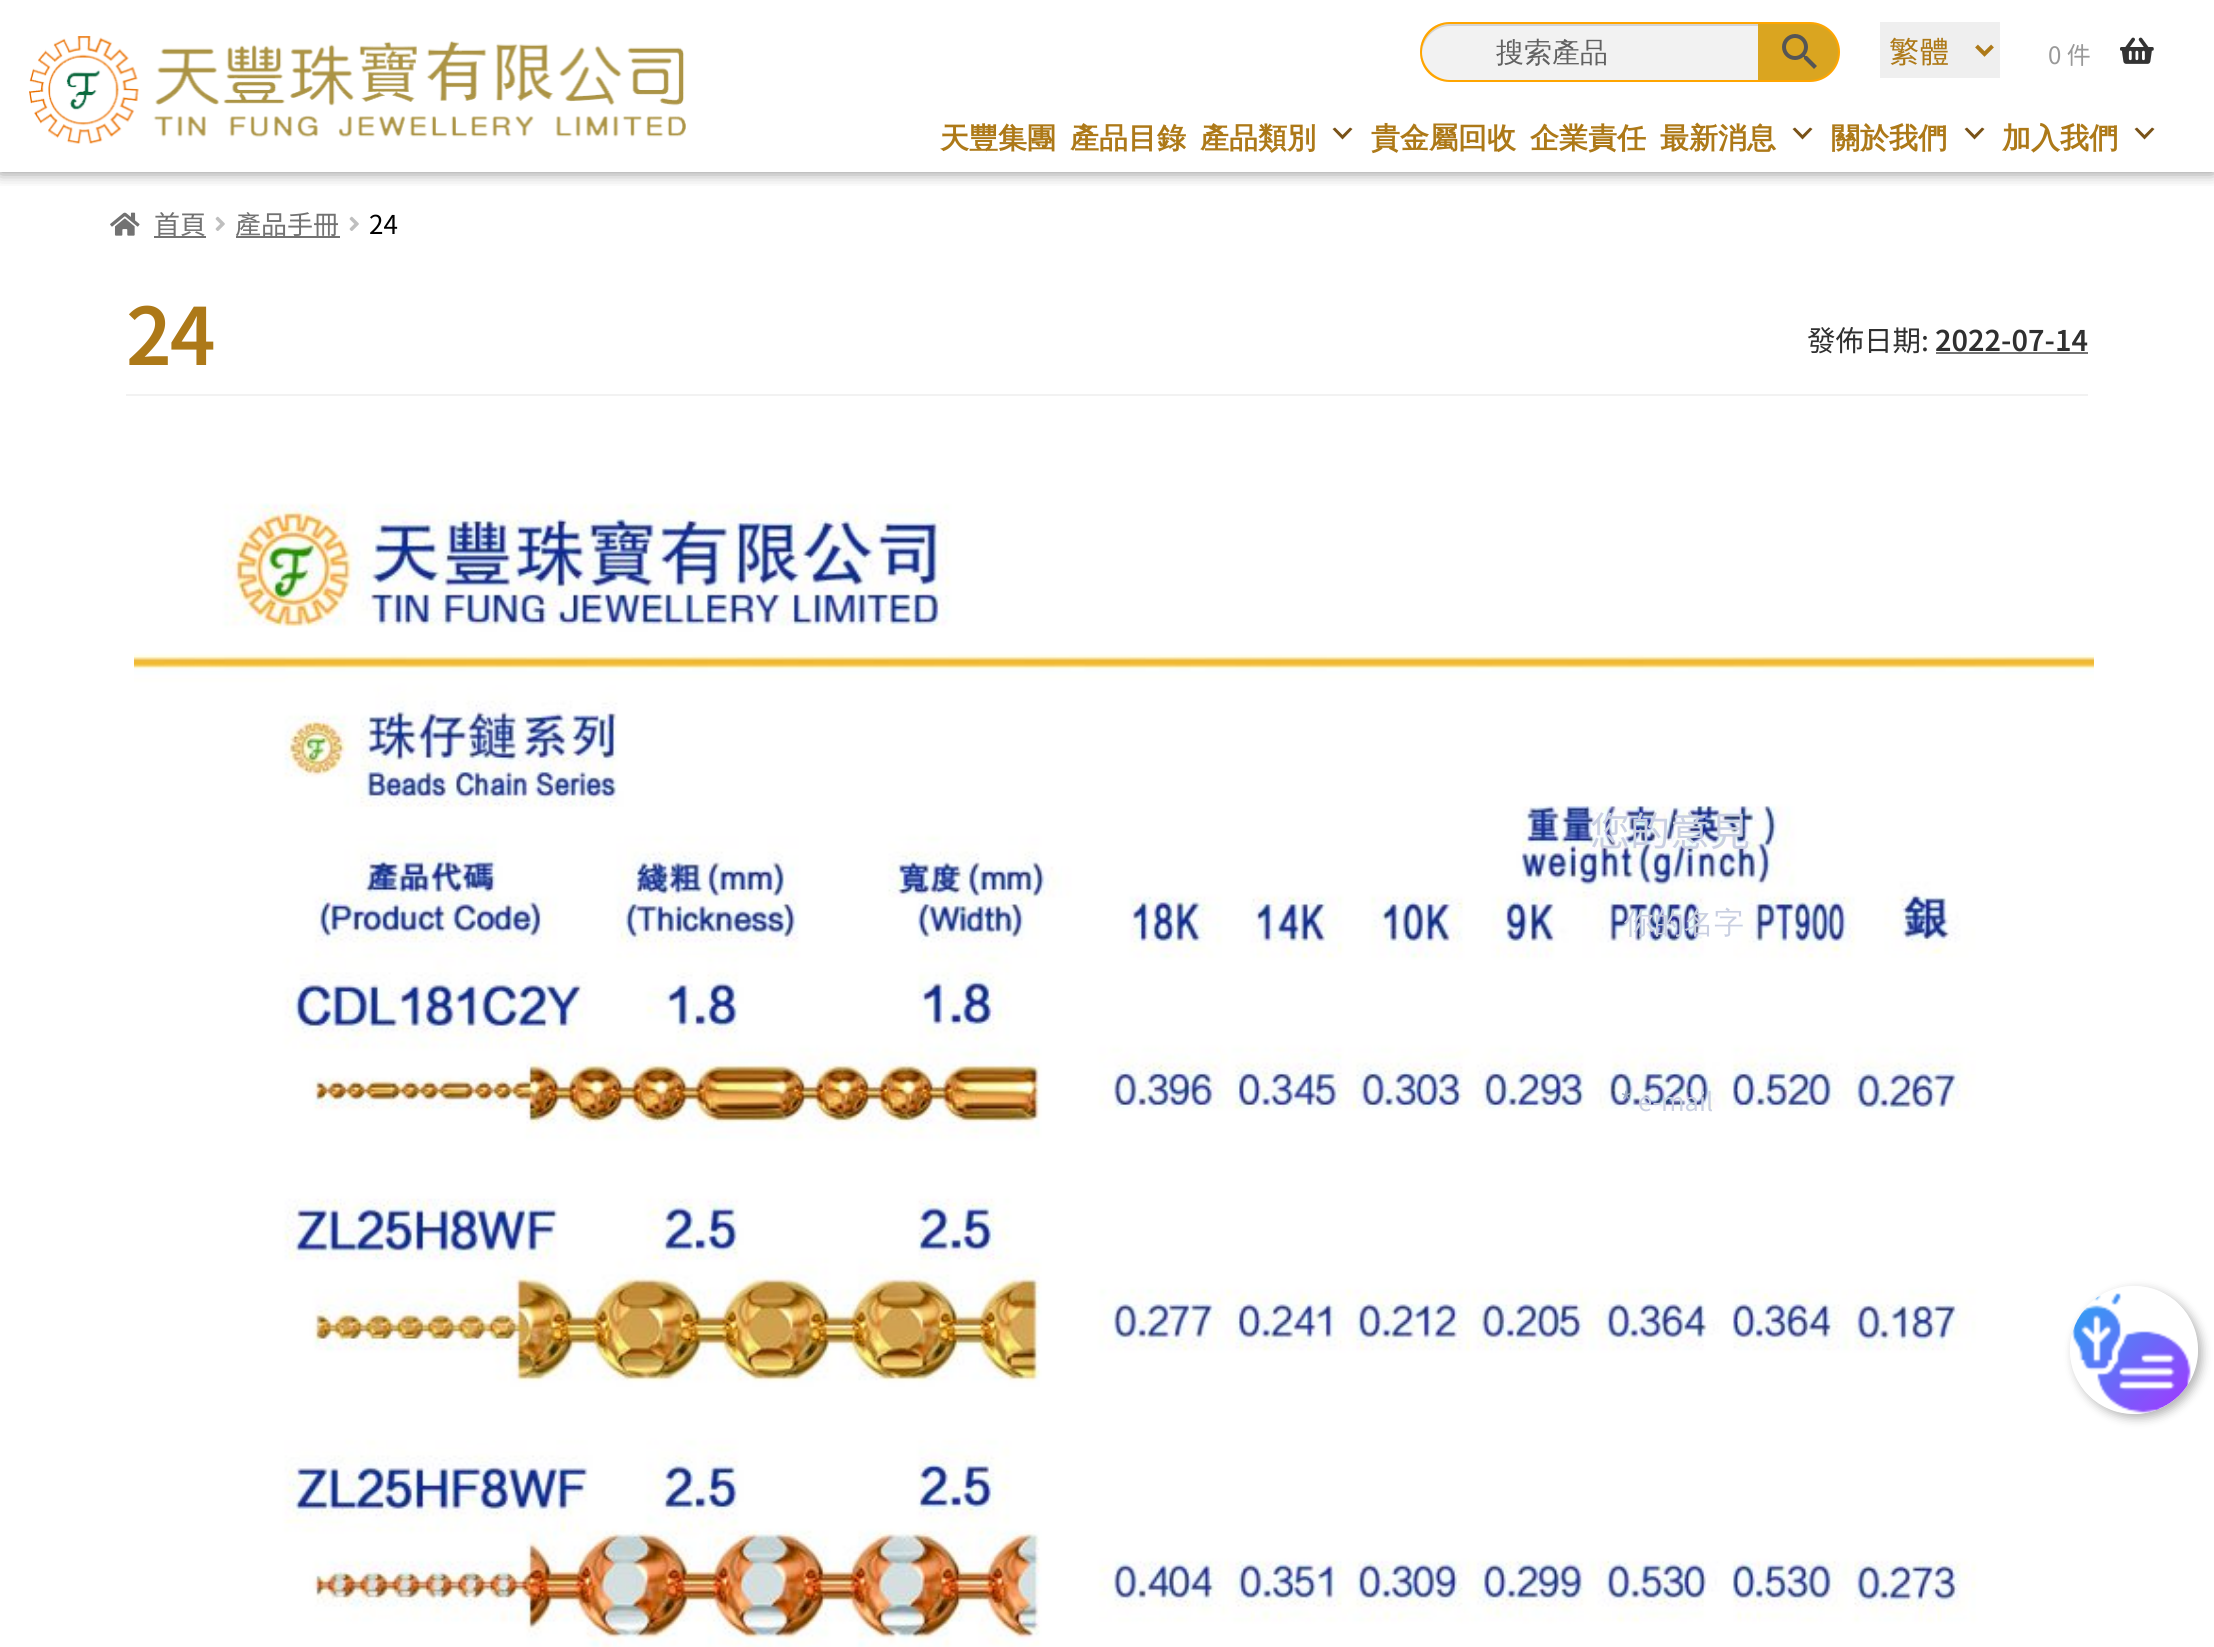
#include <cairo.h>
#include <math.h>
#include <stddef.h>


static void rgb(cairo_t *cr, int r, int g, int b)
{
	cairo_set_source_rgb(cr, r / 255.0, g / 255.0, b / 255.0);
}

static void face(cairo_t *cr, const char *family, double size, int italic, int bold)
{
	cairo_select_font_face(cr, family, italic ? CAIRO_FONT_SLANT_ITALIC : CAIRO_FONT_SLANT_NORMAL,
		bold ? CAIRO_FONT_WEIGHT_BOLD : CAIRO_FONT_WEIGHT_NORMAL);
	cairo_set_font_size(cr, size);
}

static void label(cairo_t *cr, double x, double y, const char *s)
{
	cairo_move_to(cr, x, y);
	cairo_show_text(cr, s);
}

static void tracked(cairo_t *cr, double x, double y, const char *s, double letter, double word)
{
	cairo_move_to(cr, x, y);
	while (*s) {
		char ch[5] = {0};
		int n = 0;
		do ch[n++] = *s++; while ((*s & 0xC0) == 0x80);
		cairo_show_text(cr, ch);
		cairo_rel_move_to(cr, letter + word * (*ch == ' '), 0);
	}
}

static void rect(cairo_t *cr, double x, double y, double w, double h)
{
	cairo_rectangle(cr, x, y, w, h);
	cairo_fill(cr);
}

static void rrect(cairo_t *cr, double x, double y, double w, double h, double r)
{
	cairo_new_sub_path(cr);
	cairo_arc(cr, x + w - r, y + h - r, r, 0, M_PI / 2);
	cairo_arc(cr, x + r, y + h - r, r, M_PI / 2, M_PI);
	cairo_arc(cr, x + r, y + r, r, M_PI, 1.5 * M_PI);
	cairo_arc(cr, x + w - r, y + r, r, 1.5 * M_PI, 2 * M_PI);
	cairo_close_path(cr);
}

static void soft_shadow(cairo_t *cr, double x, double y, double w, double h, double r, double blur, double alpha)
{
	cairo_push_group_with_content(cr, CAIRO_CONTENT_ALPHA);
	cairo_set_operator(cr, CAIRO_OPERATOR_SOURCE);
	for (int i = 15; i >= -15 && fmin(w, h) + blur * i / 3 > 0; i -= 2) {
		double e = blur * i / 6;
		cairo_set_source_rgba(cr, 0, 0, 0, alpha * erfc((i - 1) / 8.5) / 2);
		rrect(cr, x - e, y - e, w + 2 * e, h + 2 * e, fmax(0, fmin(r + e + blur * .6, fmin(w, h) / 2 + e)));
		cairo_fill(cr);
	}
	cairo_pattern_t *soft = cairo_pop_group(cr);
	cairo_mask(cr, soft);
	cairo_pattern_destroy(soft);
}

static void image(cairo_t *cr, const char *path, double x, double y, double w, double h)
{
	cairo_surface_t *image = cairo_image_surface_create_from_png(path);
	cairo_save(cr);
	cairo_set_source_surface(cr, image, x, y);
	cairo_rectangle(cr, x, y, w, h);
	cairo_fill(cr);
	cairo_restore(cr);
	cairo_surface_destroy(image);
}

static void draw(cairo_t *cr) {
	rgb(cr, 255, 255, 255);
	cairo_paint(cr);
	cairo_save(cr);
	cairo_rectangle(cr, 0, 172, 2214, 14);
	cairo_clip(cr);
	rgb(cr, 30, 30, 30);
	soft_shadow(cr, 0, 0, 2214, 172, 0, 8, 0.55);
	cairo_restore(cr);
	image(cr, "image0.png", 29, 36, 657, 108);
	rgb(cr, 218, 165, 32);
	cairo_new_path(cr);
	cairo_move_to(cr, 1757, 23);
	cairo_line_to(cr, 1810, 23);
	cairo_curve_to(cr, 1826, 23, 1839, 36, 1839, 52);
	cairo_curve_to(cr, 1839, 68, 1826, 81, 1810, 81);
	cairo_line_to(cr, 1757, 81);
	cairo_close_path(cr);
	cairo_fill_preserve(cr);
	rgb(cr, 255, 165, 0);
	cairo_stroke(cr);
	rgb(cr, 242, 242, 242);
	cairo_new_path(cr);
	cairo_move_to(cr, 1450, 22);
	cairo_line_to(cr, 1758, 22);
	cairo_line_to(cr, 1758, 82);
	cairo_line_to(cr, 1450, 82);
	cairo_curve_to(cr, 1433.5, 82, 1420, 68.5, 1420, 52);
	cairo_curve_to(cr, 1420, 35.5, 1433.5, 22, 1450, 22);
	cairo_close_path(cr);
	cairo_fill(cr);
	rgb(cr, 212, 212, 212);
	cairo_new_path(cr);
	cairo_move_to(cr, 1450, 26);
	cairo_line_to(cr, 1758, 26);
	cairo_line_to(cr, 1758, 24);
	cairo_line_to(cr, 1450, 24);
	cairo_curve_to(cr, 1435, 24, 1422, 37, 1422, 52);
	cairo_line_to(cr, 1422, 53);
	cairo_curve_to(cr, 1423, 38, 1435, 26, 1450, 26);
	cairo_close_path(cr);
	cairo_fill(cr);
	rgb(cr, 255, 165, 0);
	cairo_set_fill_rule(cr, CAIRO_FILL_RULE_EVEN_ODD);
	cairo_new_path(cr);
	cairo_move_to(cr, 1450, 22);
	cairo_line_to(cr, 1758, 22);
	cairo_line_to(cr, 1758, 82);
	cairo_line_to(cr, 1450, 82);
	cairo_curve_to(cr, 1433, 82, 1420, 69, 1420, 52);
	cairo_curve_to(cr, 1420, 35, 1433, 22, 1450, 22);
	cairo_close_path(cr);
	cairo_move_to(cr, 1450, 24);
	cairo_line_to(cr, 1758, 24);
	cairo_line_to(cr, 1758, 80);
	cairo_line_to(cr, 1450, 80);
	cairo_curve_to(cr, 1435, 80, 1422, 67, 1422, 52);
	cairo_curve_to(cr, 1422, 37, 1435, 24, 1450, 24);
	cairo_close_path(cr);
	cairo_fill(cr);
	face(cr, "WenQuanYi Zen Hei Medium", 28, 0, 0);
	rgb(cr, 97, 97, 97);
	label(cr, 1496, 62, "搜索產品");
	image(cr, "image1.png", 1782, 34, 35, 35);
	rgb(cr, 239, 239, 239);
	rect(cr, 1880, 22, 120, 56);
	cairo_new_path(cr);
	cairo_move_to(cr, 1976.5, 46);
	cairo_line_to(cr, 1984.5, 54);
	cairo_line_to(cr, 1992.5, 46);
	rgb(cr, 173, 121, 24);
	cairo_set_line_width(cr, 4);
	cairo_stroke(cr);
	face(cr, "Noto Sans HK", 30, 0, 0);
	label(cr, 1889, 63, "繁體");
	face(cr, "Noto Sans HK", 24, 0, 0);
	rgb(cr, 153, 153, 153);
	label(cr, 2048, 64, "0 件");
	image(cr, "image2.png", 2120, 37, 34, 27);
	face(cr, "WenQuanYi Zen Hei", 29, 0, 1);
	rgb(cr, 173, 121, 24);
	label(cr, 940, 148, "天豐集團");
	label(cr, 1070, 148, "產品目錄");
	label(cr, 1200, 148, "產品類別");
	rgb(cr, 121, 82, 24);
	cairo_set_fill_rule(cr, CAIRO_FILL_RULE_WINDING);
	cairo_new_path(cr);
	cairo_move_to(cr, 1335, 127.5);
	cairo_line_to(cr, 1342.5, 135);
	cairo_line_to(cr, 1350, 127.5);
	cairo_line_to(cr, 1352.5, 129);
	cairo_line_to(cr, 1342.5, 139.5);
	cairo_line_to(cr, 1332.5, 129);
	cairo_close_path(cr);
	cairo_fill(cr);
	rgb(cr, 173, 121, 24);
	label(cr, 1371, 148, "貴金屬回收");
	label(cr, 1530, 148, "企業責任");
	label(cr, 1660, 148, "最新消息");
	rgb(cr, 121, 82, 24);
	cairo_new_path(cr);
	cairo_move_to(cr, 1795, 127.5);
	cairo_line_to(cr, 1802.5, 135);
	cairo_line_to(cr, 1810, 127.5);
	cairo_line_to(cr, 1812.5, 129);
	cairo_line_to(cr, 1802.5, 139.5);
	cairo_line_to(cr, 1792.5, 129);
	cairo_close_path(cr);
	cairo_fill(cr);
	rgb(cr, 173, 121, 24);
	label(cr, 1831, 148, "關於我們");
	rgb(cr, 121, 82, 24);
	cairo_new_path(cr);
	cairo_move_to(cr, 1967, 127.5);
	cairo_line_to(cr, 1974.5, 135);
	cairo_line_to(cr, 1982, 127.5);
	cairo_line_to(cr, 1984.5, 129);
	cairo_line_to(cr, 1974.5, 139.5);
	cairo_line_to(cr, 1964.5, 129);
	cairo_close_path(cr);
	cairo_fill(cr);
	rgb(cr, 173, 121, 24);
	label(cr, 2002, 148, "加入我們");
	rgb(cr, 121, 82, 24);
	cairo_new_path(cr);
	cairo_move_to(cr, 2137, 127.5);
	cairo_line_to(cr, 2144.5, 135);
	cairo_line_to(cr, 2152, 127.5);
	cairo_line_to(cr, 2154.5, 129);
	cairo_line_to(cr, 2144.5, 139.5);
	cairo_line_to(cr, 2134.5, 129);
	cairo_close_path(cr);
	cairo_fill(cr);
	image(cr, "image3.png", 110, 212, 30, 24);
	rgb(cr, 114, 114, 114);
	rect(cr, 154, 236, 52, 2);
	face(cr, "Noto Sans HK", 26, 0, 0);
	label(cr, 154, 234, "首頁");
	image(cr, "image4.png", 215, 216, 10, 15);
	rect(cr, 236, 236, 104, 2);
	label(cr, 235, 234, "產品手冊");
	image(cr, "image4.png", 349, 216, 10, 15);
	rgb(cr, 0, 0, 0);
	label(cr, 369, 234, "24");
	rgb(cr, 242, 242, 242);
	rect(cr, 126, 394, 1962, 2);
	face(cr, "Noto Sans HK SemiBold", 79, 0, 0);
	rgb(cr, 173, 121, 24);
	tracked(cr, 126, 365, "24", -2, 0);
	face(cr, "Noto Sans HK", 28.5, 0, 0);
	rgb(cr, 48, 48, 48);
	label(cr, 1807, 351, "發佈日期:");
	face(cr, "Noto Sans HK SemiBold", 28.5, 0, 0);
	label(cr, 1935, 351, "2022-07-14");
	rgb(cr, 114, 114, 114);
	rect(cr, 1936, 352, 152, 2);
	image(cr, "image5.png", 134, 503, 1960, 1144);
	face(cr, "Noto Sans HK", 40, 0, 0);
	rgb(cr, 201, 207, 225);
	label(cr, 1590, 846, "您的意見");
	face(cr, "WenQuanYi Zen Hei Medium", 30, 0, 0);
	label(cr, 1624, 933, "你的名字");
	face(cr, "Noto Sans HK", 25.5, 0, 0);
	rgb(cr, 158, 170, 195);
	label(cr, 1620, 1111, "*");
	rgb(cr, 201, 207, 225);
	label(cr, 1638, 1111, "e-mail");
	cairo_save(cr);
	cairo_set_fill_rule(cr, CAIRO_FILL_RULE_EVEN_ODD);
	cairo_new_path(cr);
	cairo_move_to(cr, 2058, 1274);
	cairo_line_to(cr, 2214, 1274);
	cairo_line_to(cr, 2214, 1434);
	cairo_line_to(cr, 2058, 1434);
	cairo_close_path(cr);
	cairo_move_to(cr, 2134, 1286);
	cairo_curve_to(cr, 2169.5, 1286, 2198, 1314.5, 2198, 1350);
	cairo_curve_to(cr, 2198, 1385.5, 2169.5, 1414, 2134, 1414);
	cairo_curve_to(cr, 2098.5, 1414, 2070, 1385.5, 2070, 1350);
	cairo_curve_to(cr, 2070, 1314.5, 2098.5, 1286, 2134, 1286);
	cairo_close_path(cr);
	cairo_clip(cr);
	rgb(cr, 0, 0, 0);
	soft_shadow(cr, 2074, 1290, 128, 128, 64, 5, 0.3);
	cairo_restore(cr);
	image(cr, "image6.png", 2072, 1293, 119, 120);
}

int main(void) {
	cairo_surface_t *surface = cairo_image_surface_create(CAIRO_FORMAT_RGB24, 2214, 1647);
	cairo_t *cr = cairo_create(surface);
	cairo_font_options_t *options = cairo_font_options_create();
	cairo_font_options_set_hint_metrics(options, CAIRO_HINT_METRICS_OFF);
	cairo_font_options_set_hint_style(options, CAIRO_HINT_STYLE_NONE);
	cairo_set_font_options(cr, options);
	cairo_set_miter_limit(cr, 4);
	draw(cr);
	cairo_surface_write_to_png(surface, "render.png");
	cairo_font_options_destroy(options);
	cairo_destroy(cr);
	cairo_surface_destroy(surface);
	return 0;
}
